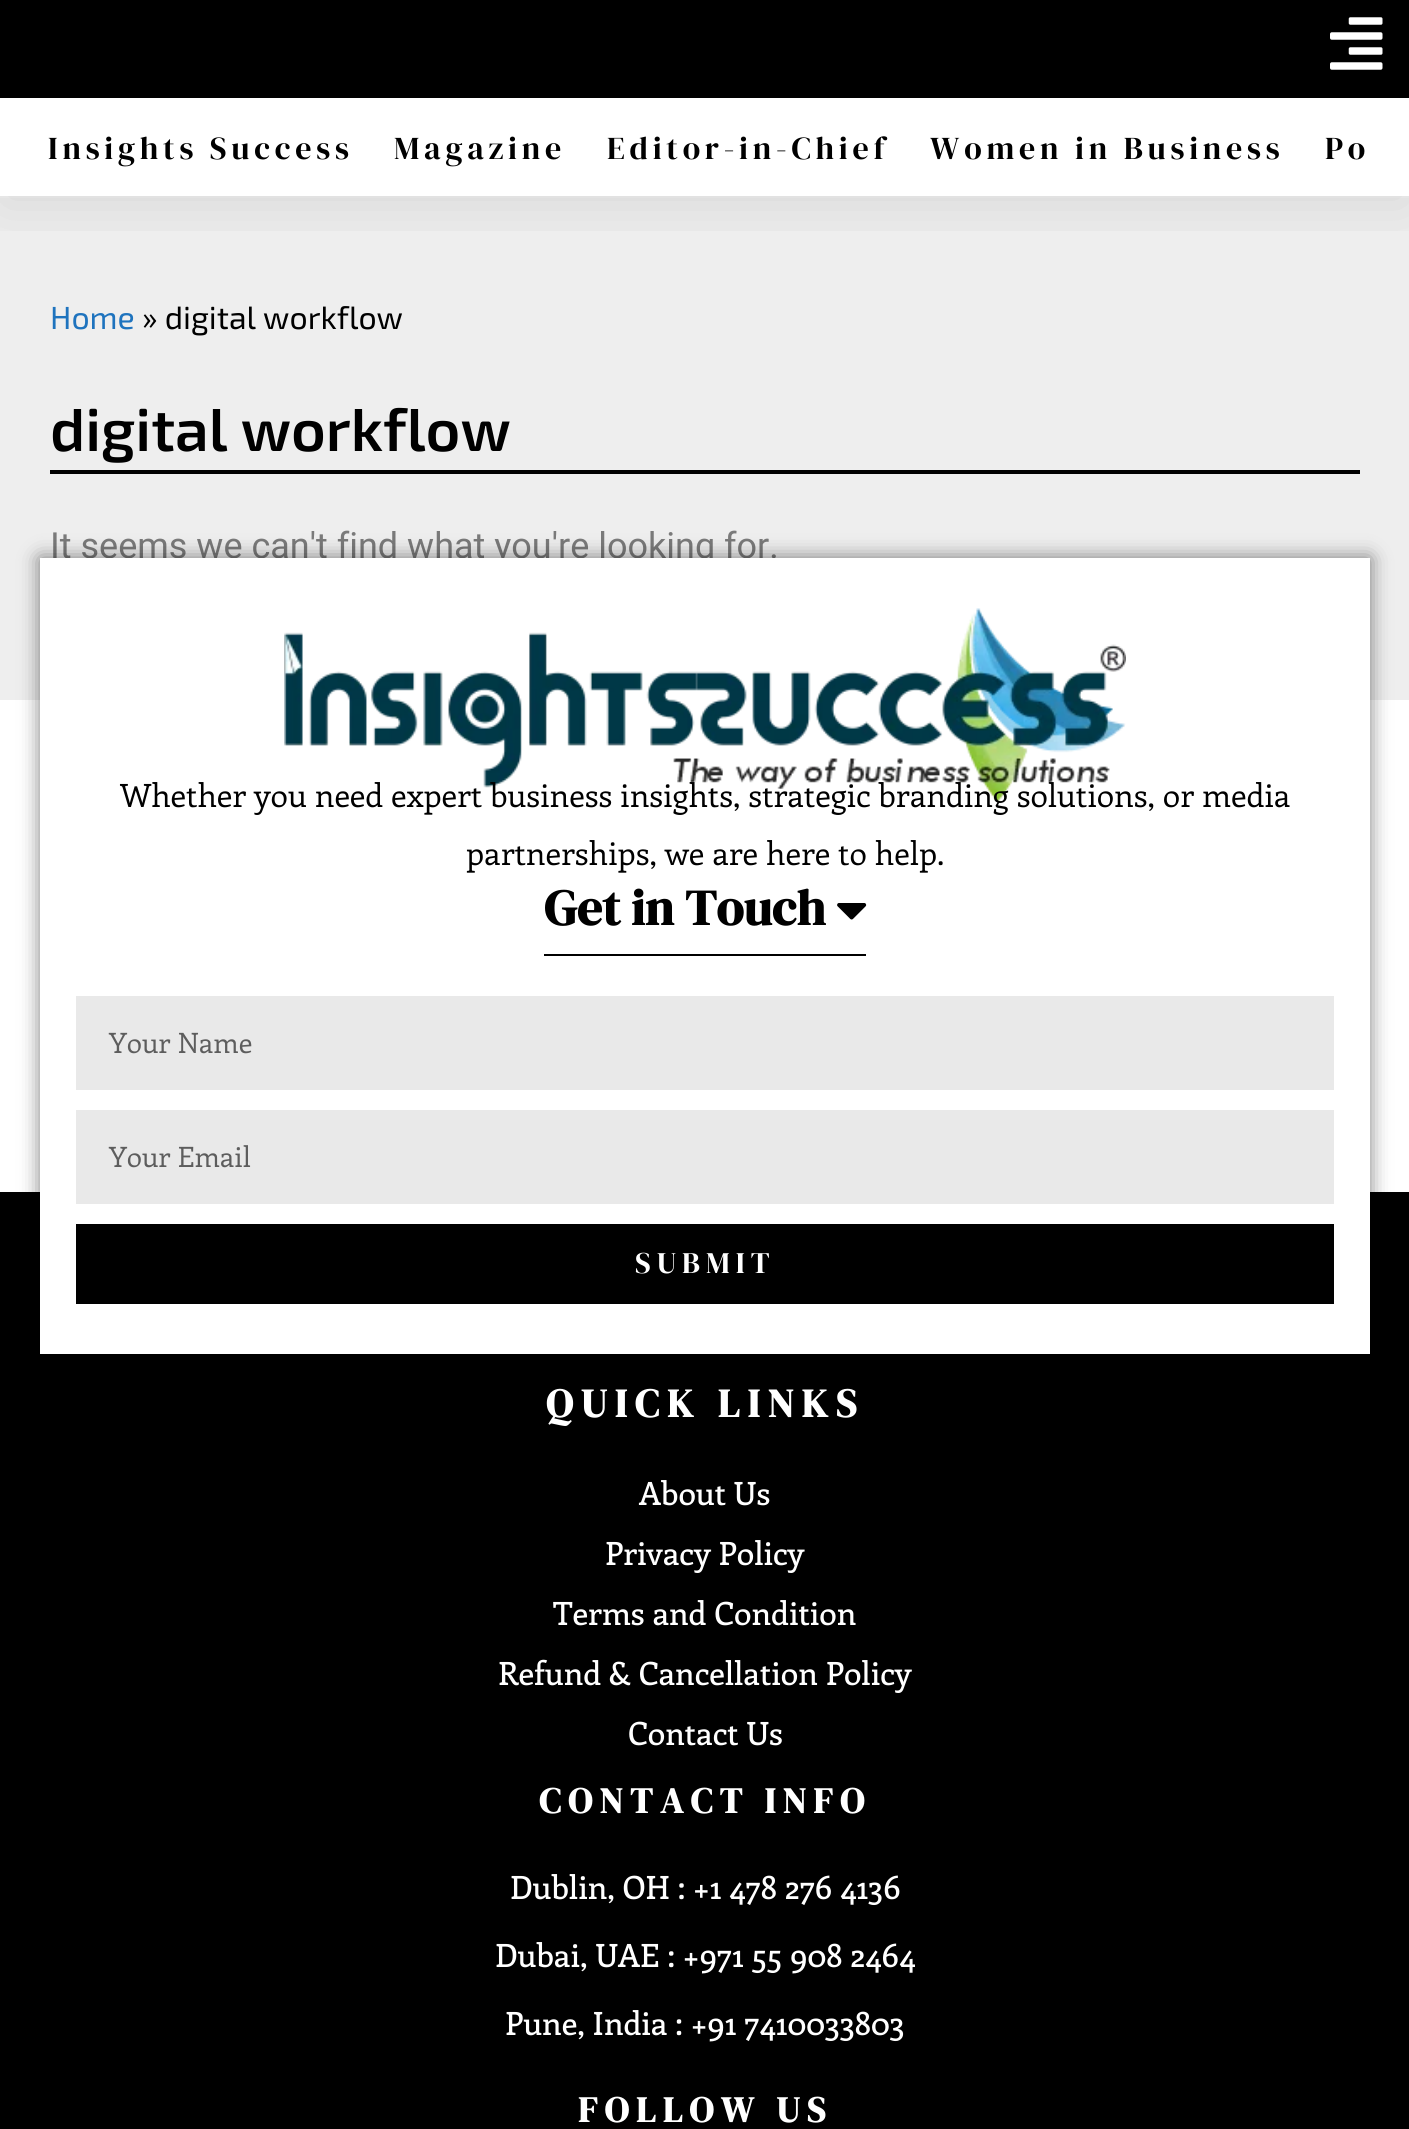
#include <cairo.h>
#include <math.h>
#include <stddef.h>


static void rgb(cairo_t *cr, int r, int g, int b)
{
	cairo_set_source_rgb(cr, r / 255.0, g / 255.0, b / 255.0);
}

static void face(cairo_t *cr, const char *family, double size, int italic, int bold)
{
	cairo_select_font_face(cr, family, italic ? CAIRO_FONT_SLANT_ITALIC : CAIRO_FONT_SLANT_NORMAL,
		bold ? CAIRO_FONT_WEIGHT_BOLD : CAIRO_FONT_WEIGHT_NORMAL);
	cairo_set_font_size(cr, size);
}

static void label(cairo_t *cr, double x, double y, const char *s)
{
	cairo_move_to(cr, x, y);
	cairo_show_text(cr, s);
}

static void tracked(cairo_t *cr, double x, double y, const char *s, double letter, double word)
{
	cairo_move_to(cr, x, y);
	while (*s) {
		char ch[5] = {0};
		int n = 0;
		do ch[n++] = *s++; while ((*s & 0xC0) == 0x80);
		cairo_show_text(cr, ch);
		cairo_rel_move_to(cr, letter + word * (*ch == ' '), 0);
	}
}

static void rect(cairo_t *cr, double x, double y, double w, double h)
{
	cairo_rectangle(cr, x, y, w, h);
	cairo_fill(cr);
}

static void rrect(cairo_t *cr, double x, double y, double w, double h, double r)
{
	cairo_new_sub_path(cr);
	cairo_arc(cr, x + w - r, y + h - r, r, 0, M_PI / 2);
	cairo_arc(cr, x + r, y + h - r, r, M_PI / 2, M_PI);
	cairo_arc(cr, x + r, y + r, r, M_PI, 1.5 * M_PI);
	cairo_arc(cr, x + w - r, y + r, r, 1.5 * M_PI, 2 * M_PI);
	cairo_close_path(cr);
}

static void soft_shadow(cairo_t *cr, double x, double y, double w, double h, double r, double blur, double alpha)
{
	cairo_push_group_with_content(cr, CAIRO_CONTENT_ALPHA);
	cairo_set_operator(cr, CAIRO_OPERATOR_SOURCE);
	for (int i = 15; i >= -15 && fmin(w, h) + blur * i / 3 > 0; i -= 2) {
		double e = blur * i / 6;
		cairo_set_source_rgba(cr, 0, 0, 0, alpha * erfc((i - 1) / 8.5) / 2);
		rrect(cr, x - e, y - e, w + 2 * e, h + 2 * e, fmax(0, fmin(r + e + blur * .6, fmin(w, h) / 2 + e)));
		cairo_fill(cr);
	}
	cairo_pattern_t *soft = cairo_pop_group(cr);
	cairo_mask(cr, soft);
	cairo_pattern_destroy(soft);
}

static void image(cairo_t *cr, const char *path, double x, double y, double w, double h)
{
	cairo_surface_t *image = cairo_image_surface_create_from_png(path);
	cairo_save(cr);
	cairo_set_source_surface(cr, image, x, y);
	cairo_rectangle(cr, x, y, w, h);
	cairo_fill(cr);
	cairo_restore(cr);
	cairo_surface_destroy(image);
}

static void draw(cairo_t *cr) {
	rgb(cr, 255, 255, 255);
	cairo_paint(cr);
	rgb(cr, 241, 241, 241);
	rect(cr, 0, 196, 1409, 2);
	rgb(cr, 238, 238, 238);
	rect(cr, 0, 198, 1409, 502);
	cairo_save(cr);
	cairo_rectangle(cr, 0, 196, 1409, 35);
	cairo_clip(cr);
	rgb(cr, 0, 0, 0);
	soft_shadow(cr, 0, 10, 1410, 196, 0, 30, 0.1);
	cairo_restore(cr);
	rgb(cr, 0, 0, 0);
	rect(cr, 0, 0, 1409, 98);
	image(cr, "image0.png", 1330, 17, 53, 53);
	face(cr, "DM Serif Display", 32, 0, 0);
	tracked(cr, 48, 159, "Insights Success", 4.75, 0);
	tracked(cr, 394, 159, "Magazine", 4.75, 0);
	tracked(cr, 607, 159, "Editor-in-Chief", 4.75, 0);
	tracked(cr, 930, 159, "Women in Business", 4.75, 0);
	tracked(cr, 1325, 159, "Po", 4.75, 0);
	face(cr, "Exo 2", 32, 0, 0);
	rgb(cr, 30, 115, 190);
	label(cr, 50, 329, "Home");
	rgb(cr, 0, 0, 0);
	label(cr, 142, 329, "» digital workflow");
	rect(cr, 50, 470, 1310, 4);
	face(cr, "Exo 2 SemiBold", 60, 0, 0);
	label(cr, 50, 451, "digital workflow");
	face(cr, "Roboto", 36, 0, 0);
	rgb(cr, 122, 122, 122);
	label(cr, 50, 558, "It seems we can't find what you're looking for.");
	rgb(cr, 0, 0, 0);
	rect(cr, 0, 1192, 1409, 937);
	rgb(cr, 0, 0, 0);
	soft_shadow(cr, 40, 558, 1330, 796, 0, 10, 0.5);
	rgb(cr, 255, 255, 255);
	rect(cr, 40, 558, 1330, 796);
	image(cr, "image1.png", 284, 608, 842, 194);
	face(cr, "Enriqueta", 32, 0, 0);
	rgb(cr, 0, 0, 0);
	label(cr, 120, 807, "Whether you need expert business insights, strategic branding solutions, or media");
	label(cr, 466, 865, "partnerships, we are here to help.");
	rect(cr, 544, 954, 322, 2);
	face(cr, "DM Serif Display", 50, 0, 1);
	label(cr, 544, 925, "Get in Touch");
	image(cr, "image2.png", 837, 903, 30, 17);
	rgb(cr, 233, 233, 233);
	rect(cr, 76, 996, 1258, 94);
	face(cr, "Enriqueta", 28, 0, 0);
	rgb(cr, 93, 93, 93);
	label(cr, 109, 1053, "Your Name");
	rgb(cr, 233, 233, 233);
	rect(cr, 76, 1110, 1258, 94);
	rgb(cr, 93, 93, 93);
	label(cr, 109, 1167, "Your Email");
	rgb(cr, 0, 0, 0);
	rect(cr, 76, 1224, 1258, 80);
	face(cr, "DM Serif Display", 30, 0, 0);
	rgb(cr, 255, 255, 255);
	tracked(cr, 635, 1273, "SUBMIT", 6, 0);
	face(cr, "DM Serif Display", 40, 0, 1);
	tracked(cr, 546, 1417, "QUICK LINKS", 8, 0);
	face(cr, "Enriqueta Medium", 32, 0, 0);
	label(cr, 639, 1505, "About Us");
	label(cr, 605, 1565, "Privacy Policy");
	label(cr, 553, 1625, "Terms and Condition");
	label(cr, 498, 1685, "Refund & Cancellation Policy");
	label(cr, 628, 1745, "Contact Us");
	face(cr, "DM Serif Display", 36, 0, 1);
	tracked(cr, 539, 1813, "CONTACT INFO", 7.25, 0);
	face(cr, "Enriqueta Medium", 32, 0, 0);
	label(cr, 510, 1899, "Dublin, OH : +1 478 276 4136");
	label(cr, 495, 1967, "Dubai, UAE : +971 55 908 2464");
	label(cr, 505, 2035, "Pune, India : +91 7410033803");
	face(cr, "DM Serif Display", 36, 0, 1);
	tracked(cr, 578, 2122, "FOLLOW US", 7.25, 0);
}

int main(void) {
	cairo_surface_t *surface = cairo_image_surface_create(CAIRO_FORMAT_RGB24, 1409, 2129);
	cairo_t *cr = cairo_create(surface);
	cairo_font_options_t *options = cairo_font_options_create();
	cairo_font_options_set_hint_metrics(options, CAIRO_HINT_METRICS_OFF);
	cairo_font_options_set_hint_style(options, CAIRO_HINT_STYLE_NONE);
	cairo_set_font_options(cr, options);
	cairo_set_miter_limit(cr, 4);
	draw(cr);
	cairo_surface_write_to_png(surface, "render.png");
	cairo_font_options_destroy(options);
	cairo_destroy(cr);
	cairo_surface_destroy(surface);
	return 0;
}
